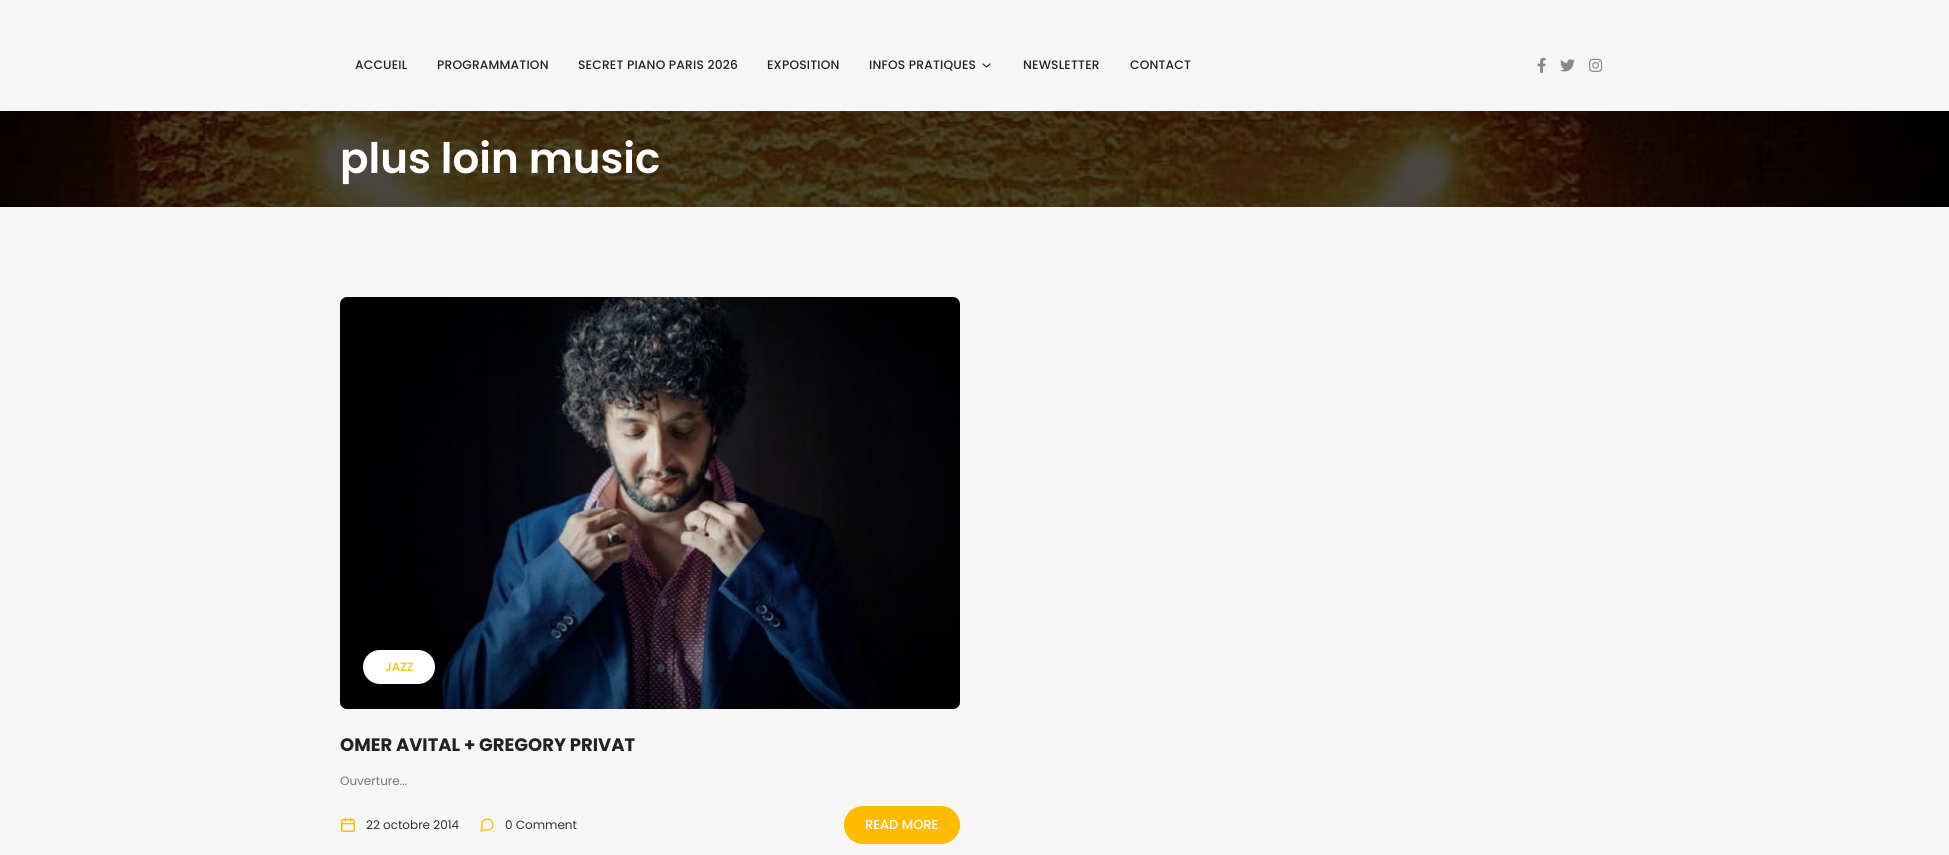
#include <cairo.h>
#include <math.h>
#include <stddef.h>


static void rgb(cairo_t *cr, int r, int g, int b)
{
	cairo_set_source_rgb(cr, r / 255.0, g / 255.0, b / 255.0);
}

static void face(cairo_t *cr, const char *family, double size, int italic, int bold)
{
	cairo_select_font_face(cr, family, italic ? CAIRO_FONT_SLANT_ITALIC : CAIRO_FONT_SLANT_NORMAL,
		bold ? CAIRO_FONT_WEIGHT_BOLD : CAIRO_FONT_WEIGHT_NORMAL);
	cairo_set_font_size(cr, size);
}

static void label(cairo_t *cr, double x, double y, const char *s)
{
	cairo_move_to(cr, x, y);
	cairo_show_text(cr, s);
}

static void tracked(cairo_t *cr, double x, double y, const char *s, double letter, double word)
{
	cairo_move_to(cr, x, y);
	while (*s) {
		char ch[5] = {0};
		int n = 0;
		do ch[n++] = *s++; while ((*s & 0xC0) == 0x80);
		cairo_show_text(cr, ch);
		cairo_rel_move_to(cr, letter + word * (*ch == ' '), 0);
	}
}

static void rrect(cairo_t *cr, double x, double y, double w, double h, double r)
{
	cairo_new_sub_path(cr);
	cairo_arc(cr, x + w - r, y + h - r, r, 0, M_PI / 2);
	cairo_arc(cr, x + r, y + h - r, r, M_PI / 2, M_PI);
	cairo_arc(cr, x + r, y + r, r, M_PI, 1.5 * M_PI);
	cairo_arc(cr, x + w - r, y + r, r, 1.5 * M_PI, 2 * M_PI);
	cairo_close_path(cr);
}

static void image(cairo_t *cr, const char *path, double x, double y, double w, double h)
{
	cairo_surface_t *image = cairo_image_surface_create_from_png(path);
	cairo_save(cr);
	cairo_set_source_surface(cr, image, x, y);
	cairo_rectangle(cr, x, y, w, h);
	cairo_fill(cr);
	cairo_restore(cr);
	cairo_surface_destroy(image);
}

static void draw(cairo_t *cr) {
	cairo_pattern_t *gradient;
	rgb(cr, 246, 246, 246);
	cairo_paint(cr);
	face(cr, "Poppins Medium", 12.25, 0, 0);
	rgb(cr, 34, 34, 34);
	tracked(cr, 355, 69, "ACCUEIL", 0.2, 0);
	tracked(cr, 437, 69, "PROGRAMMATION", 0.2, 0);
	tracked(cr, 578, 69, "SECRET PIANO PARIS 2026", 0.2, 0);
	tracked(cr, 767, 69, "EXPOSITION", 0.2, 0);
	tracked(cr, 869, 69, "INFOS PRATIQUES", 0.2, 0);
	cairo_new_path(cr);
	cairo_move_to(cr, 983, 64);
	cairo_line_to(cr, 986.5, 67);
	cairo_line_to(cr, 990, 64);
	cairo_set_line_width(cr, 1.1);
	cairo_set_line_cap(cr, CAIRO_LINE_CAP_ROUND);
	cairo_set_line_join(cr, CAIRO_LINE_JOIN_ROUND);
	cairo_stroke(cr);
	tracked(cr, 1023, 69, "NEWSLETTER", 0.2, 0);
	tracked(cr, 1130, 69, "CONTACT", 0.2, 0);
	image(cr, "image0.png", 1537, 57, 9, 16);
	image(cr, "image1.png", 1560, 59, 15, 13);
	image(cr, "image2.png", 1589, 58, 14, 14);
	image(cr, "image3.png", 0, 111, 1949, 96);
	face(cr, "Poppins SemiBold", 42, 0, 0);
	rgb(cr, 255, 255, 255);
	label(cr, 340, 173, "plus loin music");
	image(cr, "image4.png", 340, 297, 620, 412);
	gradient = cairo_pattern_create_linear(650, 297, 650, 709);
	cairo_pattern_add_color_stop_rgba(gradient, 0, 0, 0, 0, 0);
	cairo_pattern_add_color_stop_rgba(gradient, 0.5, 0, 0, 0, 0);
	cairo_pattern_add_color_stop_rgba(gradient, 1, 0, 0, 0, 0.4);
	cairo_set_source(cr, gradient);
	cairo_pattern_destroy(gradient);
	rrect(cr, 340, 297, 620, 412, 7);
	cairo_fill(cr);
	rgb(cr, 255, 255, 255);
	rrect(cr, 363, 650, 72, 34, 17);
	cairo_fill(cr);
	face(cr, "Poppins Medium", 12, 0, 0);
	rgb(cr, 255, 187, 0);
	label(cr, 385, 671, "JAZZ");
	face(cr, "Poppins", 18, 0, 1);
	rgb(cr, 34, 34, 34);
	label(cr, 340, 751, "OMER AVITAL + GREGORY PRIVAT");
	face(cr, "Poppins", 12, 0, 0);
	rgb(cr, 119, 119, 119);
	label(cr, 340, 785, "Ouverture...");
	image(cr, "image5.png", 341, 817, 14, 15);
	rgb(cr, 51, 51, 51);
	label(cr, 366, 829, "22 octobre 2014");
	image(cr, "image6.png", 480, 818, 14, 14);
	label(cr, 505, 829, "0 Comment");
	rgb(cr, 255, 187, 0);
	rrect(cr, 844.5, 806.5, 115, 37, 18.5);
	cairo_fill_preserve(cr);
	cairo_set_line_width(cr, 1);
	cairo_set_line_cap(cr, CAIRO_LINE_CAP_BUTT);
	cairo_set_line_join(cr, CAIRO_LINE_JOIN_MITER);
	cairo_stroke(cr);
	face(cr, "Poppins Medium", 13, 0, 0);
	rgb(cr, 255, 255, 255);
	label(cr, 865, 829, "READ MORE");
}

int main(void) {
	cairo_surface_t *surface = cairo_image_surface_create(CAIRO_FORMAT_RGB24, 1949, 855);
	cairo_t *cr = cairo_create(surface);
	cairo_font_options_t *options = cairo_font_options_create();
	cairo_font_options_set_hint_metrics(options, CAIRO_HINT_METRICS_OFF);
	cairo_font_options_set_hint_style(options, CAIRO_HINT_STYLE_NONE);
	cairo_set_font_options(cr, options);
	cairo_set_miter_limit(cr, 4);
	draw(cr);
	cairo_surface_write_to_png(surface, "render.png");
	cairo_font_options_destroy(options);
	cairo_destroy(cr);
	cairo_surface_destroy(surface);
	return 0;
}
